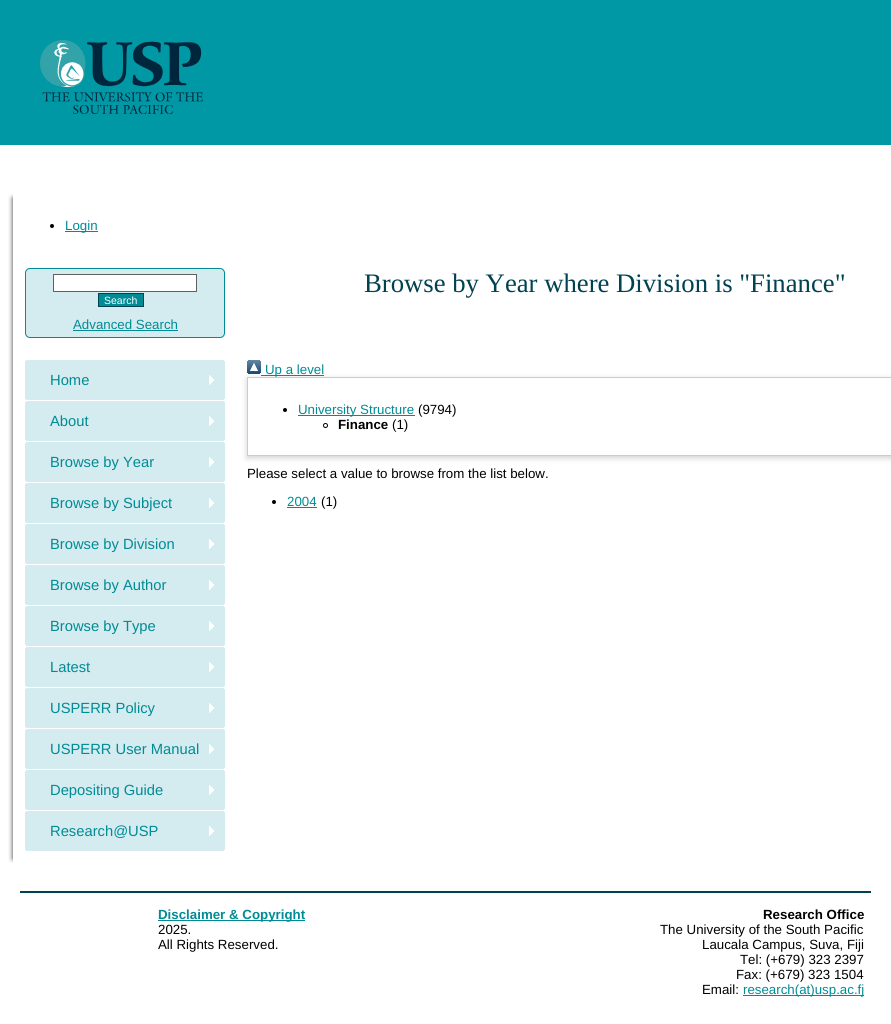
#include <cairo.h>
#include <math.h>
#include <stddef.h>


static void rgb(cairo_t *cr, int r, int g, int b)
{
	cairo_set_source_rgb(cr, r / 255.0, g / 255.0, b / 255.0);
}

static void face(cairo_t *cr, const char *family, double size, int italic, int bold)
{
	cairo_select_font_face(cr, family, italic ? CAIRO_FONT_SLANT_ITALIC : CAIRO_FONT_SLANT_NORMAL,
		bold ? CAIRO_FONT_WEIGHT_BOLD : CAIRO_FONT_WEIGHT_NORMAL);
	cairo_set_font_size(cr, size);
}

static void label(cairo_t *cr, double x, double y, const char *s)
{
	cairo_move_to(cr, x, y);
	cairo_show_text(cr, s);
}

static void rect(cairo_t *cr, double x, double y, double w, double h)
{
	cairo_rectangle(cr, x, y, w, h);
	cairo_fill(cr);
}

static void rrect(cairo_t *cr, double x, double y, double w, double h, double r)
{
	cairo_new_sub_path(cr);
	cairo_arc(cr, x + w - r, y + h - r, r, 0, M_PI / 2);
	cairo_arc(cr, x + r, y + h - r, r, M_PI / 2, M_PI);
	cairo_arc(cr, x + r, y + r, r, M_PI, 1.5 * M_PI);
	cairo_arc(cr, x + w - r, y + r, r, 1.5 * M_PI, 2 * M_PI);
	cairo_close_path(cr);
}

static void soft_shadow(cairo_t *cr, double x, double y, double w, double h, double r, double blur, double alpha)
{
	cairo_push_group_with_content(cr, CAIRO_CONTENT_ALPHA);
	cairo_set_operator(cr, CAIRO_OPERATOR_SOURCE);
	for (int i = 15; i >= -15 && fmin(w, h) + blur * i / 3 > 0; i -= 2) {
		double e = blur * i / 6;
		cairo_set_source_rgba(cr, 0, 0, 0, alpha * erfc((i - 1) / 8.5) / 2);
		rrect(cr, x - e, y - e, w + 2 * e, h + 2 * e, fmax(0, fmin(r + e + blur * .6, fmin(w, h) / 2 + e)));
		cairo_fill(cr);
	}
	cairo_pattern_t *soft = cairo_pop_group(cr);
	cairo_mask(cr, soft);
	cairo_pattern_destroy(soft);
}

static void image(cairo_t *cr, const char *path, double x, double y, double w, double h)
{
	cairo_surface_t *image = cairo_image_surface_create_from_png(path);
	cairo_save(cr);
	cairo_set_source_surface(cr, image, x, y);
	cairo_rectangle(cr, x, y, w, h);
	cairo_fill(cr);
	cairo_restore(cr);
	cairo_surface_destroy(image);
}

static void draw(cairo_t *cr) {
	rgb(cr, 255, 255, 255);
	cairo_paint(cr);
	rgb(cr, 0, 152, 165);
	rect(cr, 0, 0, 891, 145);
	image(cr, "image0.png", 40, 40, 163, 74);
	cairo_save(cr);
	cairo_rectangle(cr, 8, 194, 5, 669);
	cairo_clip(cr);
	rgb(cr, 51, 51, 51);
	soft_shadow(cr, 13, 198, 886, 661, 0, 2.5, 1);
	cairo_restore(cr);
	rgb(cr, 0, 0, 0);
	cairo_arc(cr, 52, 226, 2, 0, 2 * M_PI);
	cairo_fill(cr);
	rgb(cr, 0, 139, 149);
	rect(cr, 65, 231, 33, 1);
	face(cr, "Liberation Sans", 13.3, 0, 0);
	label(cr, 65, 230, "Login");
	face(cr, "Liberation Serif", 26.7, 0, 0);
	rgb(cr, 0, 66, 81);
	label(cr, 364, 292, "Browse by Year where Division is \"Finance\"");
	rgb(cr, 212, 235, 239);
	rrect(cr, 25.5, 268.5, 199, 69, 4.5);
	cairo_fill_preserve(cr);
	rgb(cr, 0, 139, 149);
	cairo_set_line_width(cr, 1);
	cairo_stroke(cr);
	rgb(cr, 255, 255, 255);
	cairo_rectangle(cr, 53.5, 274.5, 143, 17);
	cairo_fill_preserve(cr);
	rgb(cr, 96, 96, 96);
	cairo_stroke(cr);
	rgb(cr, 0, 139, 149);
	cairo_rectangle(cr, 98.5, 293.5, 45, 13);
	cairo_fill_preserve(cr);
	rgb(cr, 0, 66, 81);
	cairo_stroke(cr);
	face(cr, "Liberation Sans", 10.5, 0, 0);
	rgb(cr, 255, 255, 255);
	label(cr, 104, 304, "Search");
	face(cr, "Liberation Sans", 13.3, 0, 0);
	rgb(cr, 0, 139, 149);
	label(cr, 73, 329, "Advanced Search");
	rect(cr, 73, 330, 105, 1);
	image(cr, "image1.png", 25, 360, 200, 40);
	face(cr, "Liberation Sans", 14.75, 0, 0);
	label(cr, 50, 385, "Home");
	image(cr, "image1.png", 25, 401, 200, 40);
	label(cr, 50, 426, "About");
	image(cr, "image1.png", 25, 442, 200, 40);
	label(cr, 50, 467, "Browse by Year");
	image(cr, "image1.png", 25, 483, 200, 40);
	label(cr, 50, 508, "Browse by Subject");
	image(cr, "image1.png", 25, 524, 200, 40);
	label(cr, 50, 549, "Browse by Division");
	image(cr, "image1.png", 25, 565, 200, 40);
	label(cr, 50, 590, "Browse by Author");
	image(cr, "image1.png", 25, 606, 200, 40);
	label(cr, 50, 631, "Browse by Type");
	image(cr, "image1.png", 25, 647, 200, 40);
	label(cr, 50, 672, "Latest");
	image(cr, "image1.png", 25, 688, 200, 40);
	label(cr, 50, 713, "USPERR Policy");
	image(cr, "image1.png", 25, 729, 200, 40);
	label(cr, 50, 754, "USPERR User Manual");
	image(cr, "image1.png", 25, 770, 200, 40);
	label(cr, 50, 795, "Depositing Guide");
	image(cr, "image1.png", 25, 811, 200, 40);
	label(cr, 50, 836, "Research@USP");
	cairo_save(cr);
	cairo_set_fill_rule(cr, CAIRO_FILL_RULE_EVEN_ODD);
	cairo_new_path(cr);
	cairo_move_to(cr, 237, 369);
	cairo_line_to(cr, 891, 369);
	cairo_line_to(cr, 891, 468);
	cairo_line_to(cr, 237, 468);
	cairo_close_path(cr);
	cairo_move_to(cr, 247, 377);
	cairo_line_to(cr, 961, 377);
	cairo_line_to(cr, 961, 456);
	cairo_line_to(cr, 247, 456);
	cairo_close_path(cr);
	cairo_clip(cr);
	rgb(cr, 100, 100, 100);
	soft_shadow(cr, 247, 379, 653, 79, 0, 3, 0.3);
	cairo_restore(cr);
	image(cr, "image2.png", 247, 360, 14, 14);
	rect(cr, 261, 375, 63, 1);
	face(cr, "Liberation Sans", 13.3, 0, 0);
	label(cr, 265, 374, "Up a level");
	cairo_rectangle(cr, 247.5, 377.5, 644, 78);
	rgb(cr, 204, 204, 204);
	cairo_stroke(cr);
	rgb(cr, 0, 0, 0);
	cairo_arc(cr, 285, 410, 2, 0, 2 * M_PI);
	cairo_fill(cr);
	rgb(cr, 0, 139, 149);
	rect(cr, 298, 415, 117, 1);
	label(cr, 298, 414, "University Structure");
	rgb(cr, 0, 0, 0);
	label(cr, 418, 414, "(9794)");
	cairo_new_path(cr);
	cairo_arc(cr, 325.5, 425.5, 2, 0, 2 * M_PI);
	cairo_stroke(cr);
	face(cr, "Liberation Sans", 13.3, 0, 1);
	label(cr, 338, 429, "Finance");
	face(cr, "Liberation Sans", 13.3, 0, 0);
	label(cr, 392, 429, "(1)");
	label(cr, 247, 478, "Please select a value to browse from the list below.");
	cairo_new_path(cr);
	cairo_arc(cr, 274, 502, 2, 0, 2 * M_PI);
	cairo_fill(cr);
	rgb(cr, 0, 139, 149);
	label(cr, 287, 506, "2004");
	rect(cr, 287, 507, 30, 1);
	rgb(cr, 0, 0, 0);
	label(cr, 321, 506, "(1)");
	rgb(cr, 0, 66, 81);
	rect(cr, 20, 891, 851, 2);
	rgb(cr, 0, 139, 149);
	rect(cr, 158, 920, 147, 1);
	face(cr, "Liberation Sans", 13.3, 0, 1);
	label(cr, 158, 919, "Disclaimer & Copyright");
	face(cr, "Liberation Sans", 13.3, 0, 0);
	rgb(cr, 0, 0, 0);
	label(cr, 158, 934, "2025.");
	label(cr, 158, 949, "All Rights Reserved.");
	face(cr, "Liberation Sans", 13.3, 0, 1);
	label(cr, 763, 919, "Research Office");
	face(cr, "Liberation Sans", 13.3, 0, 0);
	label(cr, 660, 934, "The University of the South Pacific");
	label(cr, 702, 949, "Laucala Campus, Suva, Fiji");
	label(cr, 740, 964, "Tel: (+679) 323 2397");
	label(cr, 736, 979, "Fax: (+679) 323 1504");
	label(cr, 702, 994, "Email:");
	rgb(cr, 0, 139, 149);
	rect(cr, 743, 995, 121, 1);
	label(cr, 743, 994, "research(at)usp.ac.fj");
}

int main(void) {
	cairo_surface_t *surface = cairo_image_surface_create(CAIRO_FORMAT_RGB24, 891, 1024);
	cairo_t *cr = cairo_create(surface);
	cairo_font_options_t *options = cairo_font_options_create();
	cairo_font_options_set_hint_metrics(options, CAIRO_HINT_METRICS_OFF);
	cairo_font_options_set_hint_style(options, CAIRO_HINT_STYLE_NONE);
	cairo_set_font_options(cr, options);
	cairo_set_miter_limit(cr, 4);
	draw(cr);
	cairo_surface_write_to_png(surface, "render.png");
	cairo_font_options_destroy(options);
	cairo_destroy(cr);
	cairo_surface_destroy(surface);
	return 0;
}
